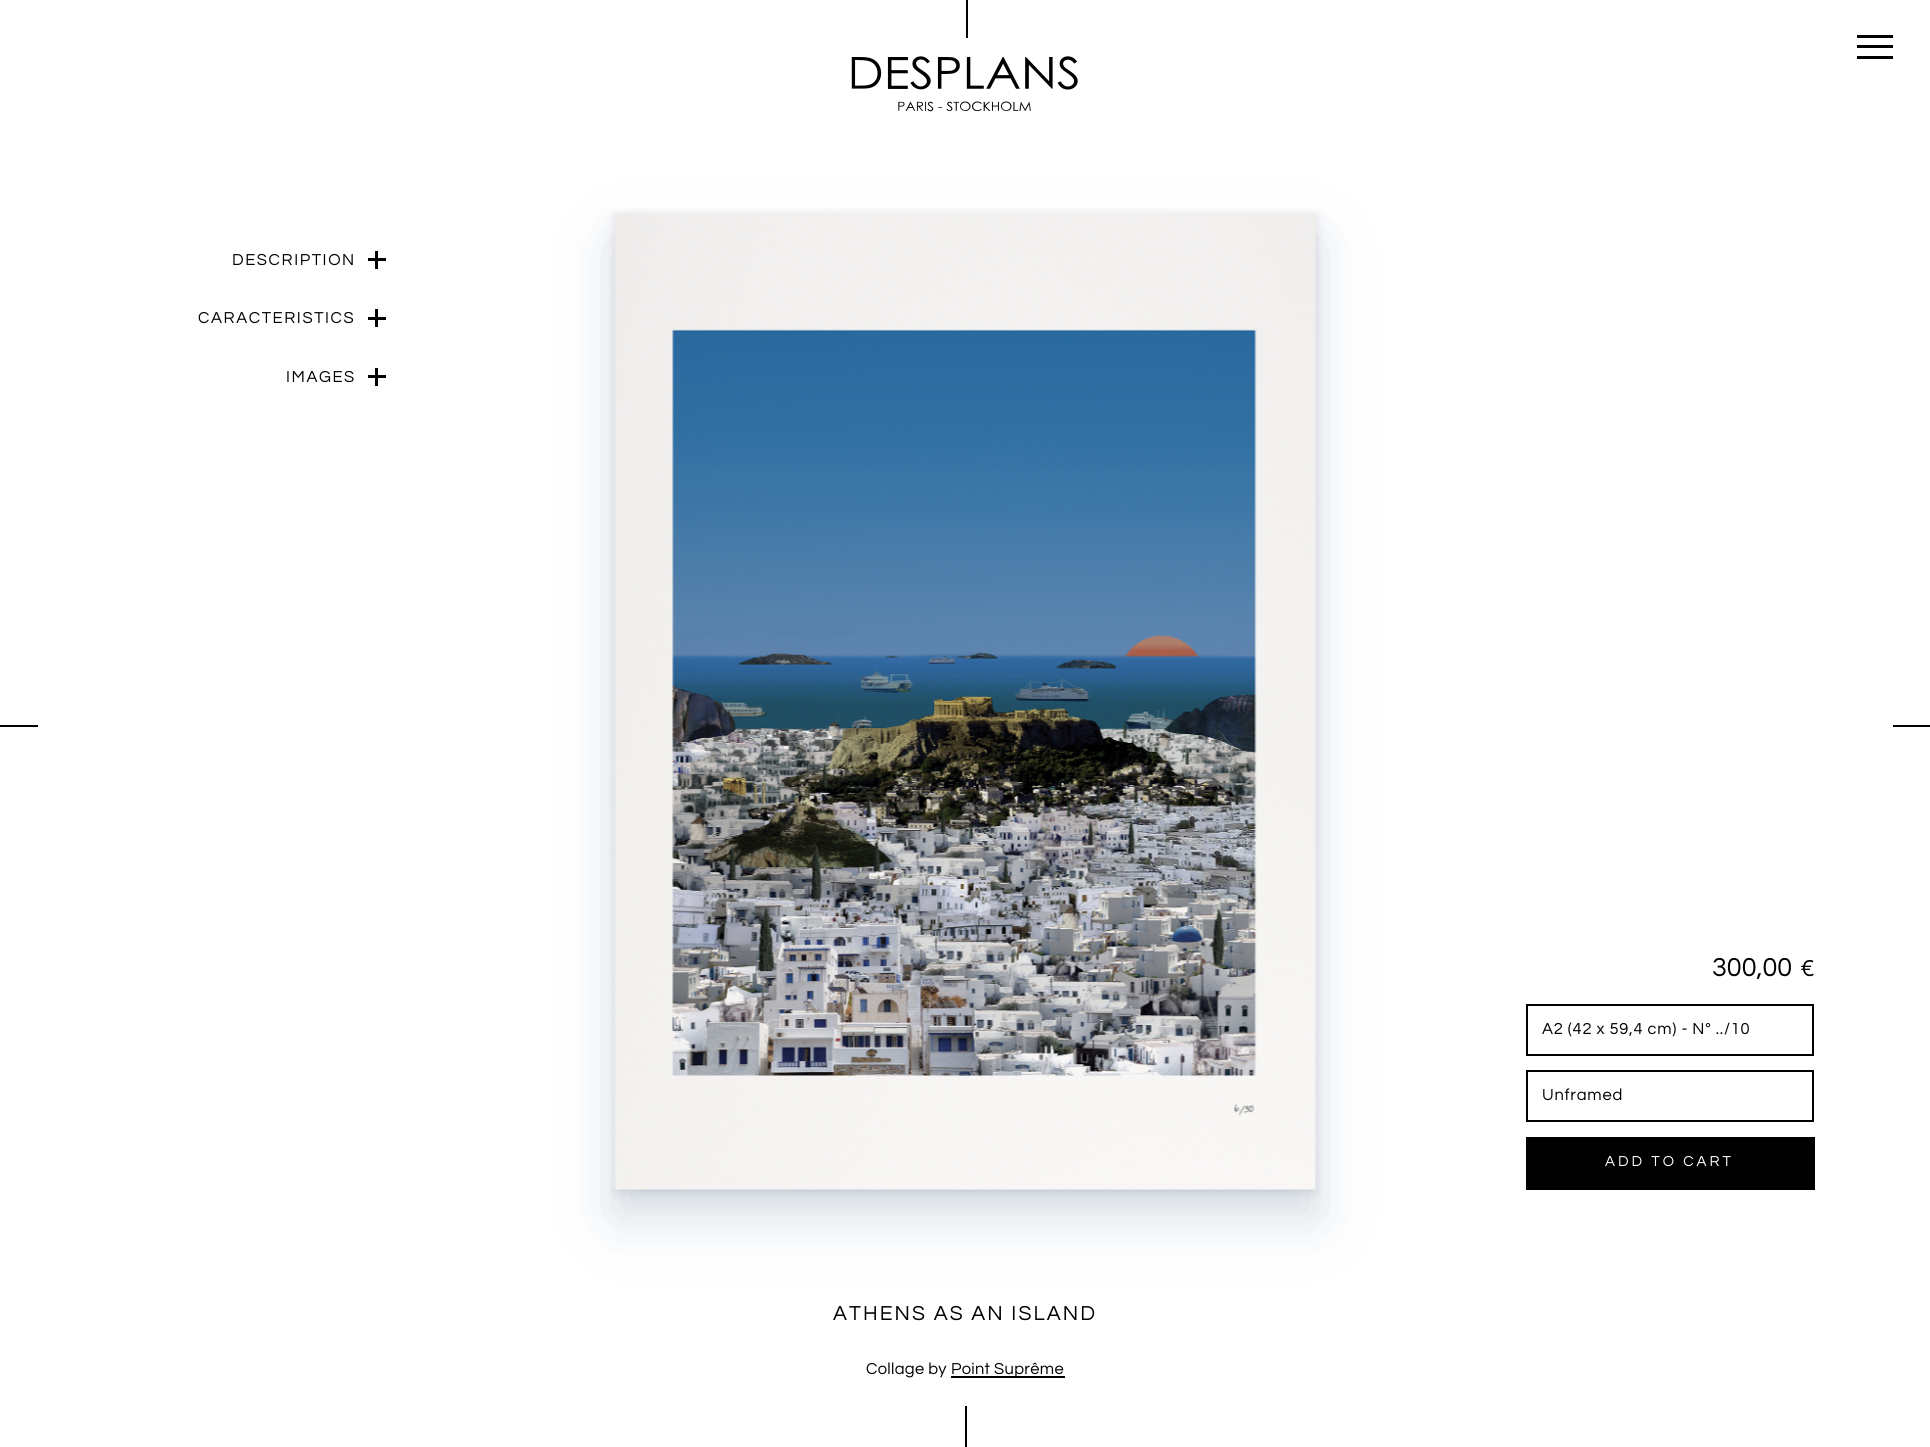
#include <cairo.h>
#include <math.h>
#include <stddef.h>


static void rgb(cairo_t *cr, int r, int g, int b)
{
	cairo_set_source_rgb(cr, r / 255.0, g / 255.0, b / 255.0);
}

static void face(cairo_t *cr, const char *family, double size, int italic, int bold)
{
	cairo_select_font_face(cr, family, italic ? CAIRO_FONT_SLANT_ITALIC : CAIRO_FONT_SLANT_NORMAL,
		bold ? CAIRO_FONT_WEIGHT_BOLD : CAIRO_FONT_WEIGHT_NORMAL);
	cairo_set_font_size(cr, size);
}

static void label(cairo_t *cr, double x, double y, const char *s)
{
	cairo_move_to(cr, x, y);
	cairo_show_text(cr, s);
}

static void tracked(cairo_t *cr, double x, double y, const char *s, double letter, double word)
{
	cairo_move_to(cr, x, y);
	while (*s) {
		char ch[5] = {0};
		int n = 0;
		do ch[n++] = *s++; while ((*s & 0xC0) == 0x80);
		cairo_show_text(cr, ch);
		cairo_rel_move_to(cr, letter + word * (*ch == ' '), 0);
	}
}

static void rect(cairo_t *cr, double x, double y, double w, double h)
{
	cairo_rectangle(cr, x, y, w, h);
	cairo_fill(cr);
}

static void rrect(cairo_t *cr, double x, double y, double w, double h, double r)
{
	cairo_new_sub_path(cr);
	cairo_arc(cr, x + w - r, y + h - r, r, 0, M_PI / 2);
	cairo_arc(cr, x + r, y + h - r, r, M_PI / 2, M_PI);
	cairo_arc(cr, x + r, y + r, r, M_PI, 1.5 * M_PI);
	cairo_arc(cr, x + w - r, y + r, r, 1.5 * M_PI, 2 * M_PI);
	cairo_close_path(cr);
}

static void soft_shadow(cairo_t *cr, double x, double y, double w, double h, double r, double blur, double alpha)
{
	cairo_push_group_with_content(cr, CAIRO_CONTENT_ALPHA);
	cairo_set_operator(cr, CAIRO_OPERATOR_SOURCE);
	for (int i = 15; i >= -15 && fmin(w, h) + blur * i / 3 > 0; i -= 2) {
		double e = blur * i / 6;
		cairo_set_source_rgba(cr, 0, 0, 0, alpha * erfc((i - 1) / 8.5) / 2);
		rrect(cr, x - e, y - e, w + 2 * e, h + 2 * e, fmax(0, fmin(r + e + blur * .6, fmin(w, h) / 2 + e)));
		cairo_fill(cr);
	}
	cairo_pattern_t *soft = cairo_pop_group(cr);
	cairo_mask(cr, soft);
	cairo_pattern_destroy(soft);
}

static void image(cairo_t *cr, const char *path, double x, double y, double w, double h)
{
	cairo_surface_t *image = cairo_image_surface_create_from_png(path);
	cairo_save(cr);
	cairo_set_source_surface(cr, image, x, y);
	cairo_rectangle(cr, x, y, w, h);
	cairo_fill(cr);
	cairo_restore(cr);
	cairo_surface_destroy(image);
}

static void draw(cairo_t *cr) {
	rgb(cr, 255, 255, 255);
	cairo_paint(cr);
	rgb(cr, 0, 0, 0);
	rect(cr, 1857, 35, 36, 3);
	rect(cr, 1857, 45, 36, 3);
	rect(cr, 1857, 56, 36, 3);
	rect(cr, 966, 0, 2, 38);
	image(cr, "image0.png", 851, 56, 227, 56);
	rgb(cr, 97, 118, 149);
	soft_shadow(cr, 615, 243, 701, 977, 0, 30, 0.2);
	rgb(cr, 0, 20, 60);
	soft_shadow(cr, 615, 228, 701, 977, 0, 15, 0.05);
	soft_shadow(cr, 615, 216, 701, 977, 0, 4.5, 0.1);
	image(cr, "image1.png", 614, 213, 702, 977);
	face(cr, "Questrial", 16.5, 0, 0);
	rgb(cr, 0, 0, 0);
	tracked(cr, 232, 265, "DESCRIPTION", 1.6, 0);
	rect(cr, 368, 258, 18, 3);
	rect(cr, 375, 251, 3, 18);
	tracked(cr, 198, 323, "CARACTERISTICS", 1.6, 0);
	rect(cr, 368, 317, 18, 3);
	rect(cr, 375, 309, 3, 18);
	tracked(cr, 286, 382, "IMAGES", 1.6, 0);
	rect(cr, 368, 375, 18, 3);
	rect(cr, 375, 368, 3, 18);
	tracked(cr, 866, 1374, "Collage by", 0.3, 0);
	rect(cr, 951, 1376, 114, 2);
	tracked(cr, 951, 1374, "Point Suprême", 0.3, 0);
	face(cr, "Questrial", 27, 0, 0);
	label(cr, 1712, 976, "300,00");
	face(cr, "Questrial", 24, 0, 0);
	label(cr, 1800, 976, "€");
	rect(cr, 1526, 1137, 289, 53);
	face(cr, "Questrial", 15, 0, 0);
	rgb(cr, 255, 255, 255);
	tracked(cr, 1605, 1166, "ADD TO CART", 3, 0);
	cairo_rectangle(cr, 1527, 1005, 286, 50);
	rgb(cr, 0, 0, 0);
	cairo_stroke(cr);
	face(cr, "Questrial", 16.5, 0, 0);
	tracked(cr, 1542, 1034, "A2 (42 x 59,4 cm) - N° ../10", 0.75, 0);
	cairo_rectangle(cr, 1527, 1071, 286, 50);
	cairo_stroke(cr);
	tracked(cr, 1542, 1100, "Unframed", 0.75, 0);
	face(cr, "Questrial", 21, 0, 0);
	tracked(cr, 833, 1320, "ATHENS AS AN ISLAND", 2.1, 0);
	rect(cr, 0, 725, 38, 2);
	rect(cr, 1893, 725, 37, 2);
	rect(cr, 965, 1406, 2, 41);
}

int main(void) {
	cairo_surface_t *surface = cairo_image_surface_create(CAIRO_FORMAT_RGB24, 1930, 1447);
	cairo_t *cr = cairo_create(surface);
	cairo_font_options_t *options = cairo_font_options_create();
	cairo_font_options_set_hint_metrics(options, CAIRO_HINT_METRICS_OFF);
	cairo_font_options_set_hint_style(options, CAIRO_HINT_STYLE_NONE);
	cairo_set_font_options(cr, options);
	cairo_set_miter_limit(cr, 4);
	draw(cr);
	cairo_surface_write_to_png(surface, "render.png");
	cairo_font_options_destroy(options);
	cairo_destroy(cr);
	cairo_surface_destroy(surface);
	return 0;
}
